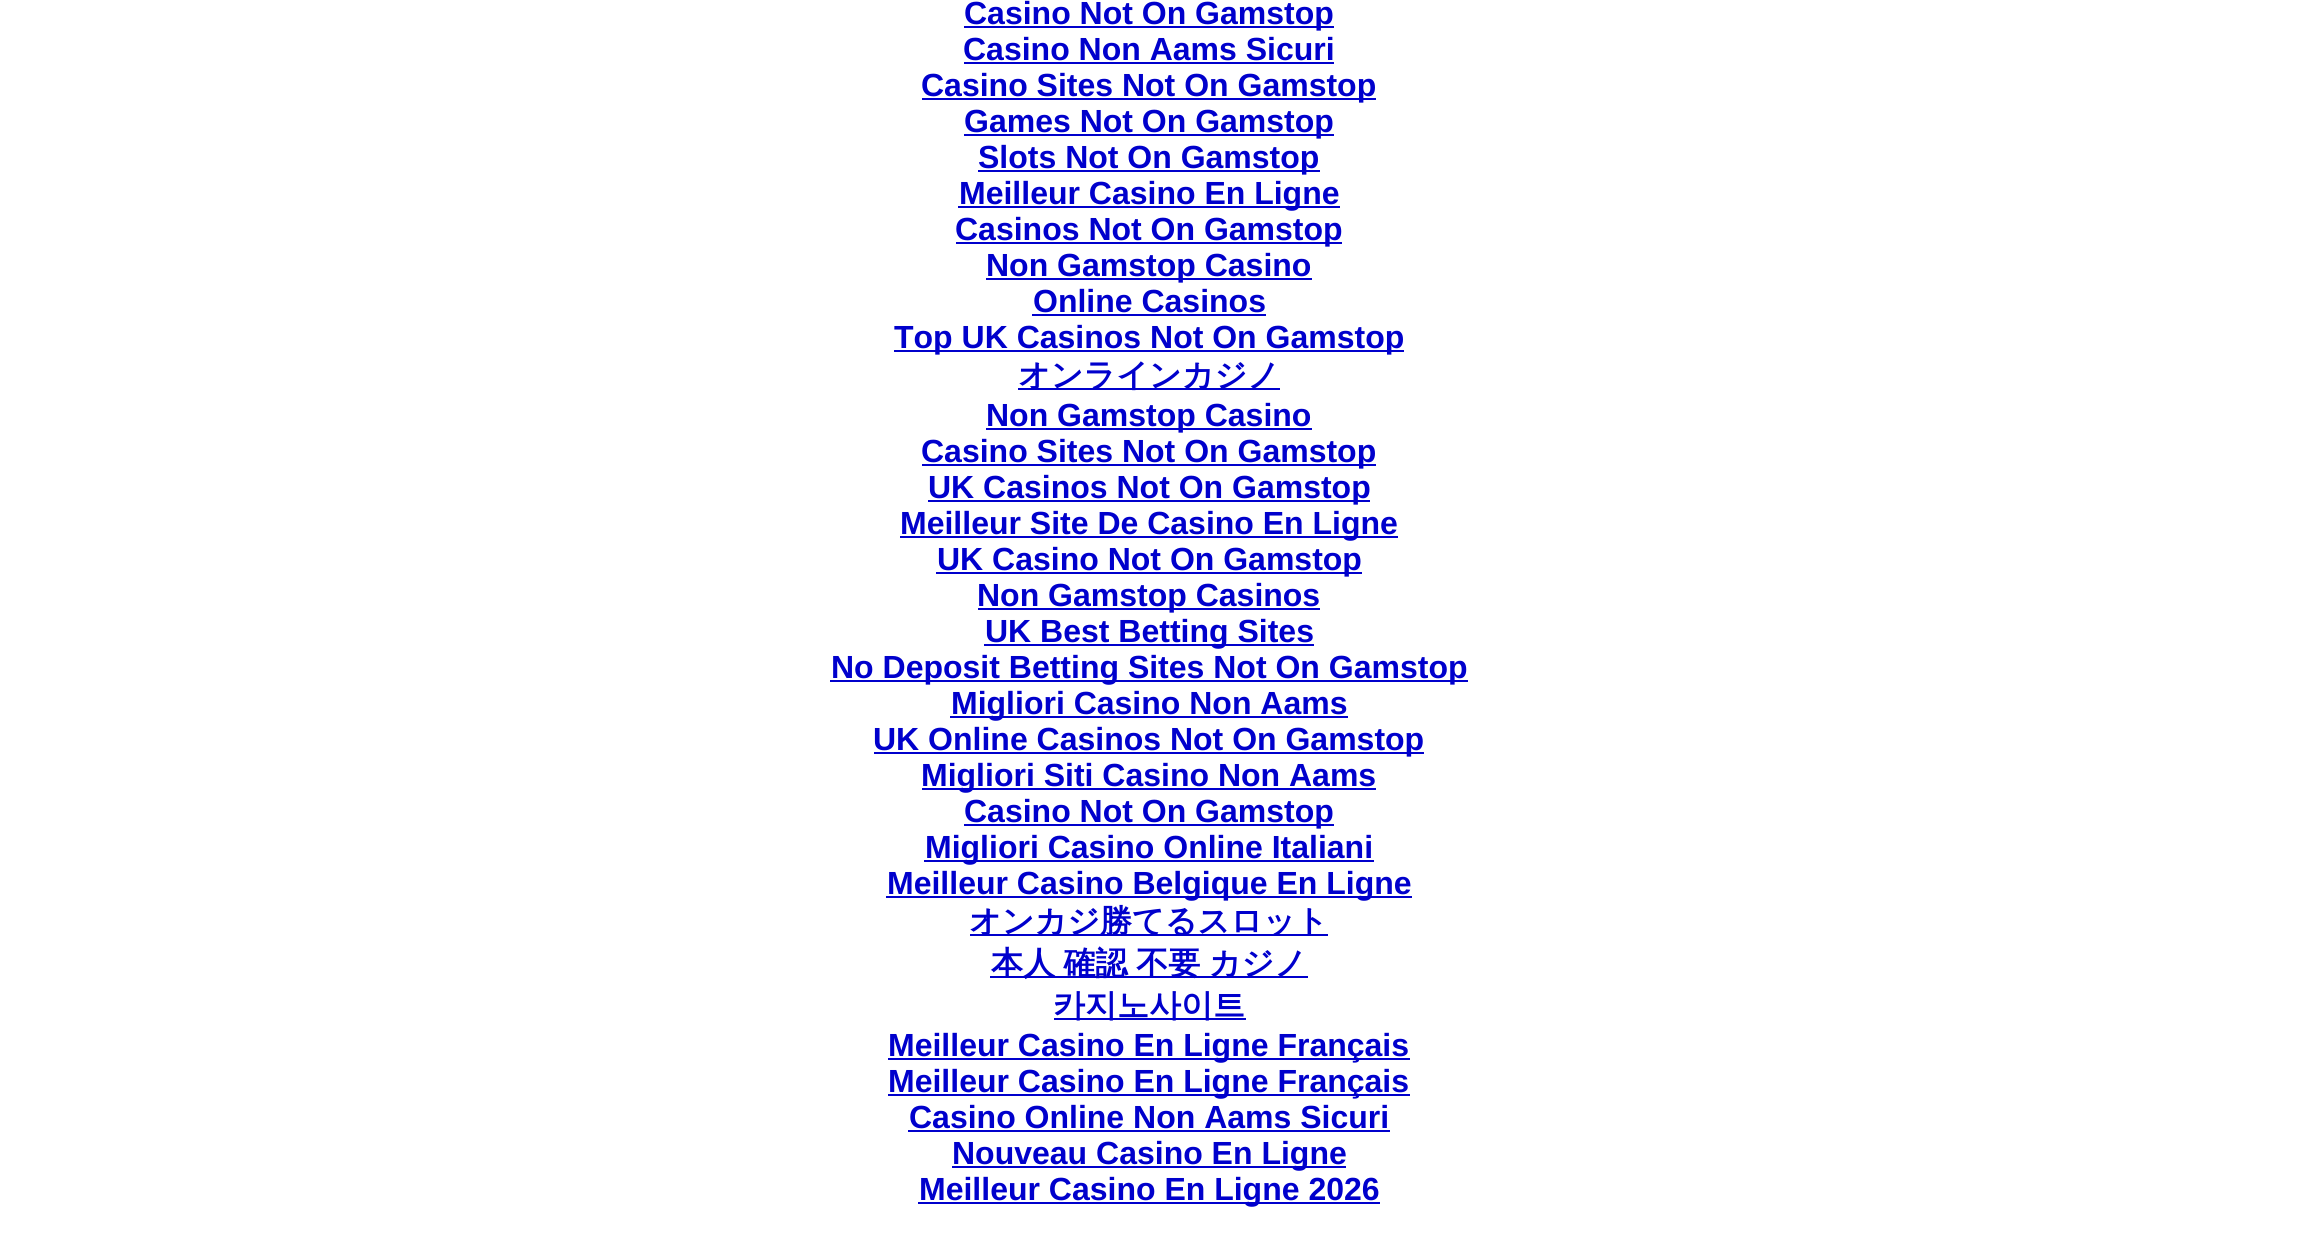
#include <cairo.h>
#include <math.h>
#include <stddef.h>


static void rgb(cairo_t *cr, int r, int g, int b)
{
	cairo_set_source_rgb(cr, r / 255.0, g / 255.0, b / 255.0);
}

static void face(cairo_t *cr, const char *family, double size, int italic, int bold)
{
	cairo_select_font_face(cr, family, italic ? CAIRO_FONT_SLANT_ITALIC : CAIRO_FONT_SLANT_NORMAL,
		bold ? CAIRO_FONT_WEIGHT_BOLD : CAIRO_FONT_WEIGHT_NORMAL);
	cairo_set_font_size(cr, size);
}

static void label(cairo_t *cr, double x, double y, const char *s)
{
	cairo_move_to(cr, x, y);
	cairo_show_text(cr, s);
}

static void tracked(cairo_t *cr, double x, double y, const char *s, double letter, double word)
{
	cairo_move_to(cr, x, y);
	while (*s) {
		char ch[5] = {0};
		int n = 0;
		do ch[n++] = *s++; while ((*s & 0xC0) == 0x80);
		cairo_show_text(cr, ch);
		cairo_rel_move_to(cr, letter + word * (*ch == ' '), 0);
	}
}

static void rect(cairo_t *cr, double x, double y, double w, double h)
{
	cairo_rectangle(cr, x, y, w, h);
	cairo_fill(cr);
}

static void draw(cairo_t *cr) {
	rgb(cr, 255, 255, 255);
	cairo_paint(cr);
	rgb(cr, 0, 0, 204);
	rect(cr, 964, 26, 370, 2);
	face(cr, "Liberation Sans", 32, 0, 1);
	label(cr, 964, 24, "Casino Not On Gamstop");
	label(cr, 963, 60, "Casino Non Aams Sicuri");
	rect(cr, 964, 62, 370, 2);
	rect(cr, 922, 98, 454, 2);
	label(cr, 921, 96, "Casino Sites Not On Gamstop");
	rect(cr, 964, 134, 370, 2);
	label(cr, 964, 132, "Games Not On Gamstop");
	rect(cr, 978, 170, 342, 2);
	label(cr, 978, 168, "Slots Not On Gamstop");
	rect(cr, 958, 206, 382, 2);
	label(cr, 959, 204, "Meilleur Casino En Ligne");
	rect(cr, 956, 242, 386, 2);
	label(cr, 955, 240, "Casinos Not On Gamstop");
	rect(cr, 986, 278, 326, 2);
	label(cr, 986, 276, "Non Gamstop Casino");
	label(cr, 1033, 312, "Online Casinos");
	rect(cr, 1032, 314, 234, 2);
	rect(cr, 894, 350, 510, 2);
	label(cr, 894, 348, "Top UK Casinos Not On Gamstop");
	rect(cr, 1018, 388, 262, 2);
	face(cr, "WenQuanYi Zen Hei", 32, 0, 1);
	label(cr, 1018, 386, "オンラインカジノ");
	rect(cr, 986, 428, 326, 2);
	face(cr, "Liberation Sans", 32, 0, 1);
	label(cr, 986, 426, "Non Gamstop Casino");
	rect(cr, 922, 464, 454, 2);
	label(cr, 921, 462, "Casino Sites Not On Gamstop");
	rect(cr, 928, 500, 442, 2);
	label(cr, 928, 498, "UK Casinos Not On Gamstop");
	rect(cr, 900, 536, 498, 2);
	label(cr, 900, 534, "Meilleur Site De Casino En Ligne");
	rect(cr, 936, 572, 426, 2);
	label(cr, 937, 570, "UK Casino Not On Gamstop");
	rect(cr, 978, 608, 342, 2);
	label(cr, 977, 606, "Non Gamstop Casinos");
	rect(cr, 984, 644, 330, 2);
	label(cr, 985, 642, "UK Best Betting Sites");
	rect(cr, 830, 680, 638, 2);
	label(cr, 831, 678, "No Deposit Betting Sites Not On Gamstop");
	rect(cr, 950, 716, 398, 2);
	label(cr, 951, 714, "Migliori Casino Non Aams");
	rect(cr, 874, 752, 550, 2);
	label(cr, 873, 750, "UK Online Casinos Not On Gamstop");
	rect(cr, 922, 788, 454, 2);
	label(cr, 921, 786, "Migliori Siti Casino Non Aams");
	rect(cr, 964, 824, 370, 2);
	label(cr, 964, 822, "Casino Not On Gamstop");
	rect(cr, 924, 860, 450, 2);
	label(cr, 925, 858, "Migliori Casino Online Italiani");
	rect(cr, 886, 896, 526, 2);
	label(cr, 887, 894, "Meilleur Casino Belgique En Ligne");
	rect(cr, 970, 934, 358, 2);
	face(cr, "WenQuanYi Zen Hei", 32, 0, 1);
	label(cr, 969, 932, "オンカジ勝てるスロット");
	rect(cr, 990, 976, 318, 2);
	tracked(cr, 991, 974, "本人 確認 不要 カジノ", 0, -1);
	rect(cr, 1054, 1018, 192, 2);
	label(cr, 1053, 1016, "카지노사이트");
	rect(cr, 888, 1058, 522, 2);
	face(cr, "Liberation Sans", 32, 0, 1);
	label(cr, 888, 1056, "Meilleur Casino En Ligne Français");
	rect(cr, 888, 1094, 522, 2);
	label(cr, 888, 1092, "Meilleur Casino En Ligne Français");
	label(cr, 909, 1128, "Casino Online Non Aams Sicuri");
	rect(cr, 908, 1130, 482, 2);
	rect(cr, 952, 1166, 394, 2);
	label(cr, 952, 1164, "Nouveau Casino En Ligne");
	rect(cr, 918, 1202, 462, 2);
	label(cr, 919, 1200, "Meilleur Casino En Ligne 2026");
}

int main(void) {
	cairo_surface_t *surface = cairo_image_surface_create(CAIRO_FORMAT_RGB24, 2297, 1240);
	cairo_t *cr = cairo_create(surface);
	cairo_font_options_t *options = cairo_font_options_create();
	cairo_font_options_set_hint_metrics(options, CAIRO_HINT_METRICS_OFF);
	cairo_font_options_set_hint_style(options, CAIRO_HINT_STYLE_NONE);
	cairo_set_font_options(cr, options);
	cairo_set_miter_limit(cr, 4);
	draw(cr);
	cairo_surface_write_to_png(surface, "render.png");
	cairo_font_options_destroy(options);
	cairo_destroy(cr);
	cairo_surface_destroy(surface);
	return 0;
}
